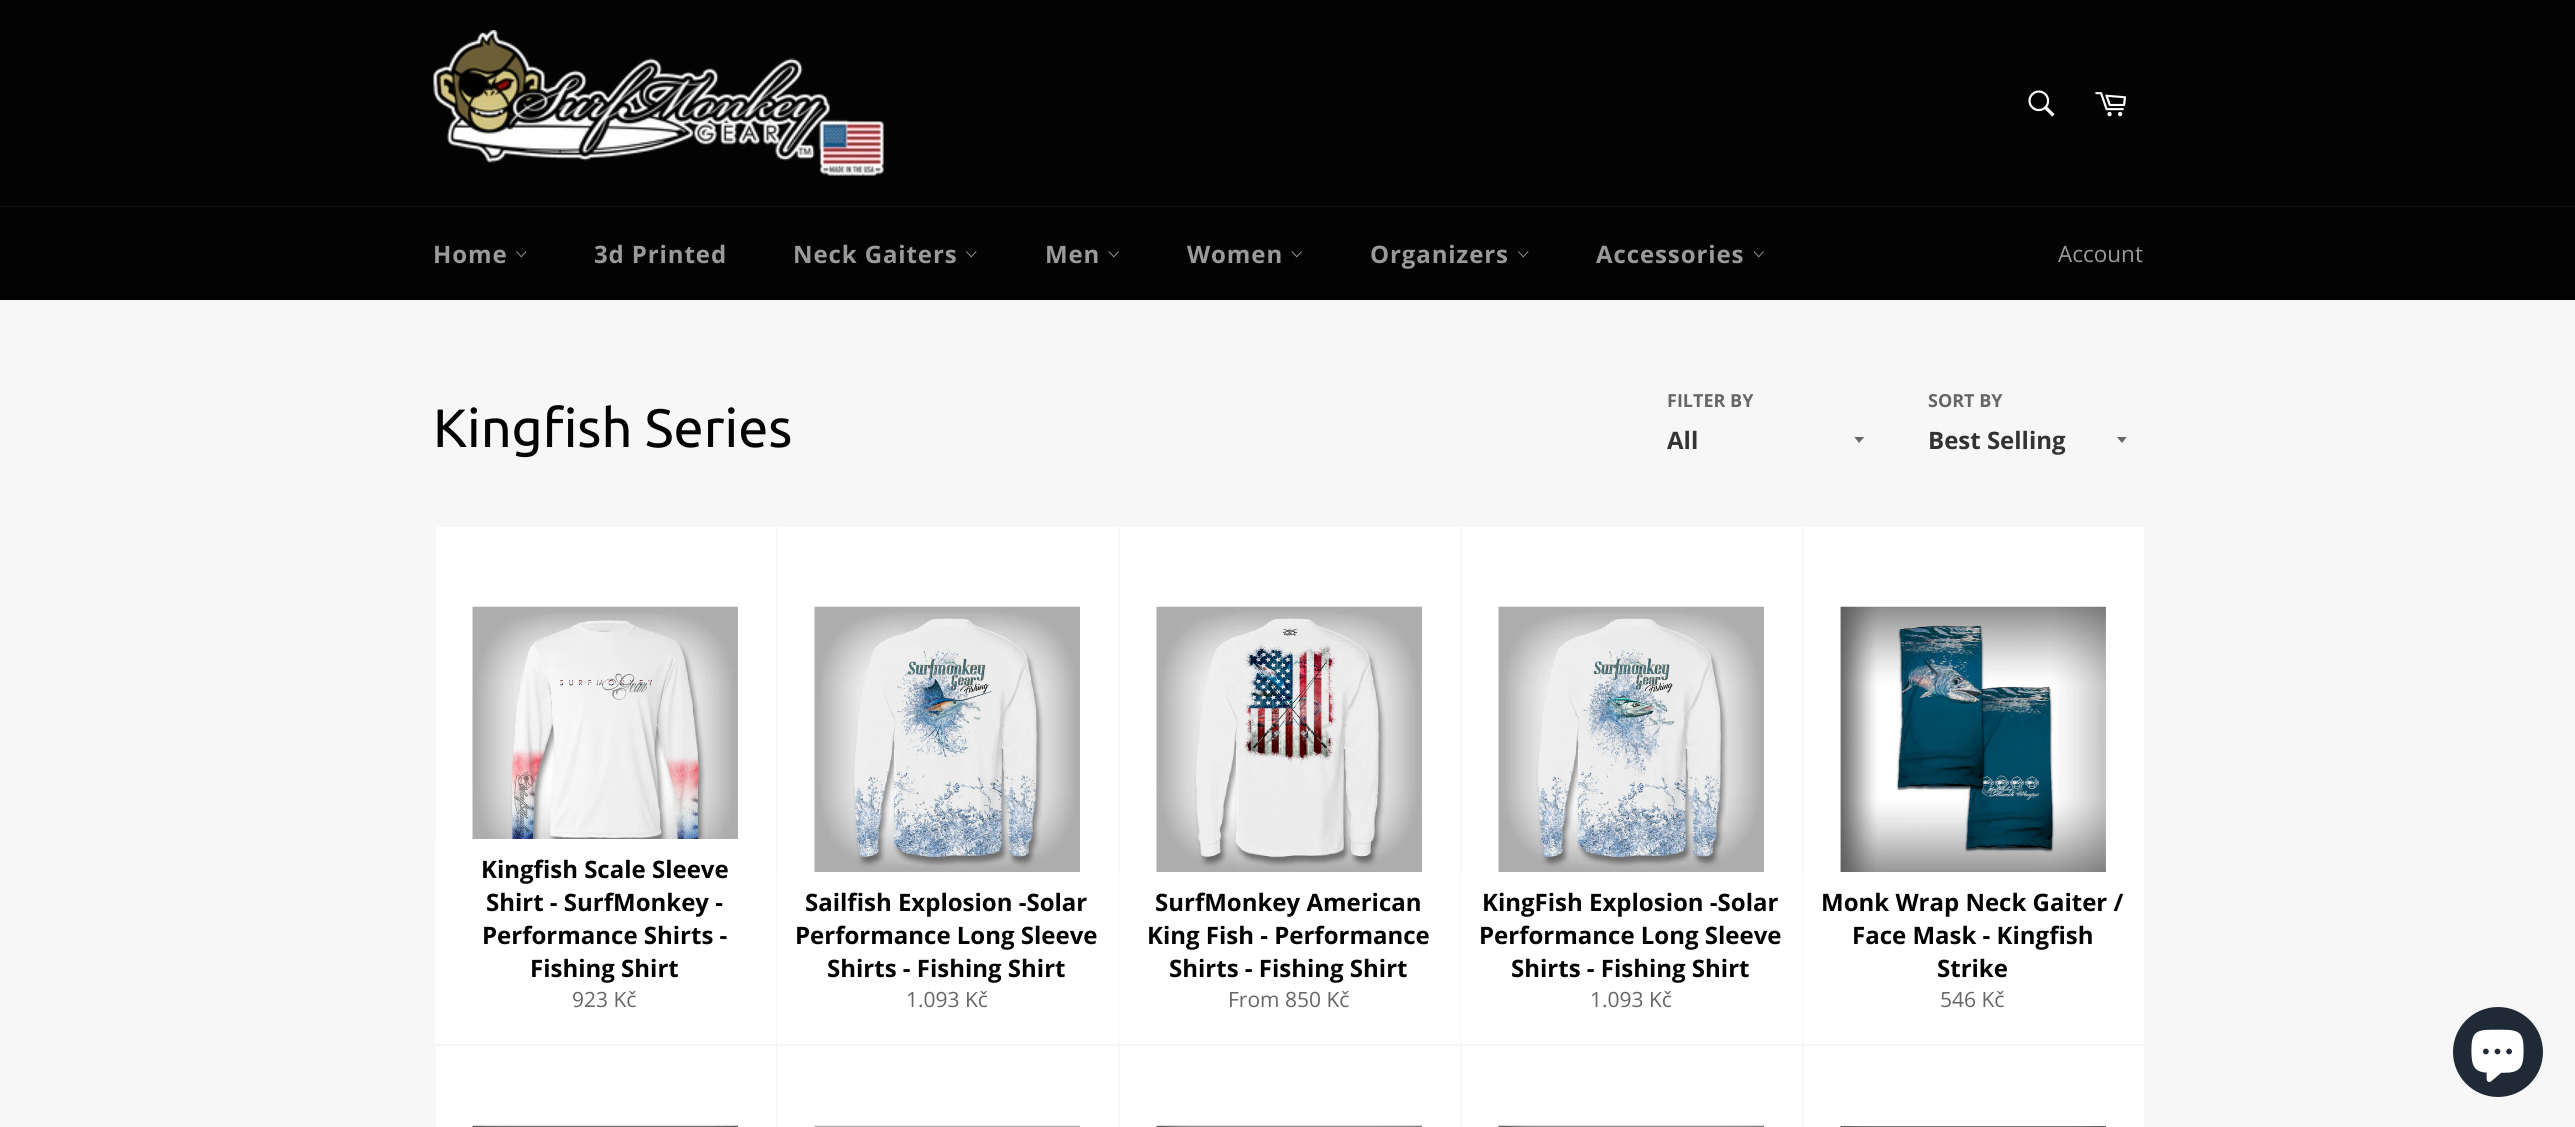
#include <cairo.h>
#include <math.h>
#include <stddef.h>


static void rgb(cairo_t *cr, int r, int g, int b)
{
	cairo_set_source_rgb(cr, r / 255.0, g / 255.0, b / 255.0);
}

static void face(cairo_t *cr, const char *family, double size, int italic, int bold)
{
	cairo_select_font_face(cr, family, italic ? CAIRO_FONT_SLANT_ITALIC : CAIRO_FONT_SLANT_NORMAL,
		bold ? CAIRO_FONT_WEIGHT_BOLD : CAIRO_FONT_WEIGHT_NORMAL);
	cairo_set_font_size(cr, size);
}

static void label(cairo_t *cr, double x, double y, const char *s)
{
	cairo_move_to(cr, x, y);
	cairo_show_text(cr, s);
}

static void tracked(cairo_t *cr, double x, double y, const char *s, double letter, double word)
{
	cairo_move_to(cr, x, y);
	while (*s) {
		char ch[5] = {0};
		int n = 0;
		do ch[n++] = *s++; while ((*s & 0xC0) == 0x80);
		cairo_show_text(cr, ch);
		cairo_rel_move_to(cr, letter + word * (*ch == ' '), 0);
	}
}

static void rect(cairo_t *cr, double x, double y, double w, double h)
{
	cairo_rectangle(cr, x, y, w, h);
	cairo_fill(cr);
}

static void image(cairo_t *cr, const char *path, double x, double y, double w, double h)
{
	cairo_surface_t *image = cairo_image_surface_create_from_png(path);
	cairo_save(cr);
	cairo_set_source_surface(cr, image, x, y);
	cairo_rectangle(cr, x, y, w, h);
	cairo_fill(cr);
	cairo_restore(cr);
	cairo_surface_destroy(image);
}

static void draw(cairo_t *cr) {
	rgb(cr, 247, 247, 247);
	cairo_paint(cr);
	rgb(cr, 3, 3, 3);
	rect(cr, 0, 0, 2575, 206);
	image(cr, "image0.png", 433, 30, 451, 146);
	image(cr, "image1.png", 2028, 90, 27, 27);
	image(cr, "image2.png", 2095, 92, 31, 25);
	rgb(cr, 16, 16, 16);
	rect(cr, 0, 206, 2575, 1);
	rgb(cr, 3, 3, 3);
	rect(cr, 0, 207, 2575, 93);
	face(cr, "Open Sans", 24, 0, 1);
	rgb(cr, 154, 154, 154);
	tracked(cr, 433, 263, "Home", 0.9, 0);
	image(cr, "image3.png", 516, 251, 11, 7);
	tracked(cr, 594, 263, "3d Printed", 0.9, 0);
	tracked(cr, 793, 263, "Neck Gaiters", 0.9, 0);
	image(cr, "image3.png", 966, 251, 11, 7);
	tracked(cr, 1045, 263, "Men", 0.9, 0);
	image(cr, "image4.png", 1108, 251, 11, 7);
	tracked(cr, 1187, 263, "Women", 0.9, 0);
	image(cr, "image4.png", 1291, 251, 11, 7);
	tracked(cr, 1370, 263, "Organizers", 0.9, 0);
	image(cr, "image3.png", 1518, 251, 11, 7);
	tracked(cr, 1596, 263, "Accessories", 0.9, 0);
	image(cr, "image4.png", 1753, 251, 11, 7);
	face(cr, "Open Sans", 22.5, 0, 0);
	label(cr, 2058, 262, "Account");
	face(cr, "Ubuntu", 54, 0, 0);
	rgb(cr, 3, 3, 3);
	label(cr, 433, 447, "Kingfish Series");
	face(cr, "Open Sans", 18, 0, 1);
	rgb(cr, 102, 102, 102);
	label(cr, 1667, 407, "FILTER BY");
	cairo_save(cr);
	cairo_rectangle(cr, 1854, 437, 12, 7);
	cairo_clip(cr);
	cairo_new_path(cr);
	cairo_move_to(cr, 1854, 436.5);
	cairo_line_to(cr, 1859, 443);
	cairo_line_to(cr, 1864.5, 436.5);
	cairo_close_path(cr);
	cairo_fill(cr);
	cairo_restore(cr);
	face(cr, "Open Sans", 24, 0, 1);
	rgb(cr, 51, 51, 51);
	label(cr, 1667, 449, "All");
	face(cr, "Open Sans", 18, 0, 1);
	rgb(cr, 102, 102, 102);
	label(cr, 1928, 407, "SORT BY");
	cairo_save(cr);
	cairo_rectangle(cr, 2117, 437, 12, 7);
	cairo_clip(cr);
	cairo_new_path(cr);
	cairo_move_to(cr, 2116.5, 436.5);
	cairo_line_to(cr, 2122, 443);
	cairo_line_to(cr, 2127, 436.5);
	cairo_close_path(cr);
	cairo_fill(cr);
	cairo_restore(cr);
	face(cr, "Open Sans", 24, 0, 1);
	rgb(cr, 51, 51, 51);
	label(cr, 1928, 449, "Best Selling");
	rgb(cr, 255, 255, 255);
	rect(cr, 436, 527, 340, 312);
	image(cr, "image5.png", 472, 606, 266, 233);
	rect(cr, 435, 839, 341, 205);
	rgb(cr, 3, 3, 3);
	label(cr, 481, 878, "Kingfish Scale Sleeve");
	label(cr, 486, 911, "Shirt - SurfMonkey -");
	label(cr, 482, 944, "Performance Shirts -");
	label(cr, 530, 977, "Fishing Shirt");
	face(cr, "Open Sans", 21, 0, 0);
	rgb(cr, 102, 102, 102);
	label(cr, 572, 1007, "923 Kč");
	rgb(cr, 255, 255, 255);
	rect(cr, 778, 527, 340, 345);
	image(cr, "image6.png", 814, 606, 266, 266);
	rect(cr, 777, 872, 341, 172);
	face(cr, "Open Sans", 24, 0, 1);
	rgb(cr, 3, 3, 3);
	label(cr, 805, 911, "Sailfish Explosion -Solar");
	label(cr, 795, 944, "Performance Long Sleeve");
	label(cr, 827, 977, "Shirts - Fishing Shirt");
	face(cr, "Open Sans", 21, 0, 0);
	rgb(cr, 102, 102, 102);
	label(cr, 906, 1007, "1.093 Kč");
	rgb(cr, 255, 255, 255);
	rect(cr, 1120, 527, 340, 345);
	image(cr, "image7.png", 1156, 606, 266, 266);
	rect(cr, 1119, 872, 341, 172);
	face(cr, "Open Sans", 24, 0, 1);
	rgb(cr, 3, 3, 3);
	label(cr, 1155, 911, "SurfMonkey American");
	label(cr, 1147, 944, "King Fish - Performance");
	label(cr, 1169, 977, "Shirts - Fishing Shirt");
	face(cr, "Open Sans", 21, 0, 0);
	rgb(cr, 102, 102, 102);
	label(cr, 1228, 1007, "From 850 Kč");
	rgb(cr, 255, 255, 255);
	rect(cr, 1462, 527, 340, 345);
	image(cr, "image8.png", 1498, 606, 266, 266);
	rect(cr, 1461, 872, 341, 172);
	face(cr, "Open Sans", 24, 0, 1);
	rgb(cr, 3, 3, 3);
	label(cr, 1482, 911, "KingFish Explosion -Solar");
	label(cr, 1479, 944, "Performance Long Sleeve");
	label(cr, 1511, 977, "Shirts - Fishing Shirt");
	face(cr, "Open Sans", 21, 0, 0);
	rgb(cr, 102, 102, 102);
	label(cr, 1590, 1007, "1.093 Kč");
	rgb(cr, 255, 255, 255);
	rect(cr, 1804, 527, 340, 345);
	image(cr, "image9.png", 1840, 606, 266, 266);
	rect(cr, 1803, 872, 341, 172);
	face(cr, "Open Sans", 24, 0, 1);
	rgb(cr, 3, 3, 3);
	label(cr, 1821, 911, "Monk Wrap Neck Gaiter /");
	label(cr, 1852, 944, "Face Mask - Kingfish");
	label(cr, 1937, 977, "Strike");
	face(cr, "Open Sans", 21, 0, 0);
	rgb(cr, 102, 102, 102);
	label(cr, 1940, 1007, "546 Kč");
	rgb(cr, 255, 255, 255);
	rect(cr, 436, 1046, 340, 81);
	image(cr, "image10.png", 472, 1125, 266, 2);
	rect(cr, 778, 1046, 340, 81);
	image(cr, "image11.png", 814, 1125, 266, 2);
	rect(cr, 1120, 1046, 340, 81);
	image(cr, "image12.png", 1156, 1125, 266, 2);
	rect(cr, 1462, 1046, 340, 81);
	image(cr, "image13.png", 1498, 1125, 266, 2);
	rect(cr, 1804, 1046, 340, 81);
	image(cr, "image14.png", 1840, 1126, 266, 1);
	rgb(cr, 32, 42, 54);
	cairo_arc(cr, 2498, 1052, 45, 0, 2 * M_PI);
	cairo_fill(cr);
	image(cr, "image15.png", 2471, 1029, 53, 53);
}

int main(void) {
	cairo_surface_t *surface = cairo_image_surface_create(CAIRO_FORMAT_RGB24, 2575, 1127);
	cairo_t *cr = cairo_create(surface);
	cairo_font_options_t *options = cairo_font_options_create();
	cairo_font_options_set_hint_metrics(options, CAIRO_HINT_METRICS_OFF);
	cairo_font_options_set_hint_style(options, CAIRO_HINT_STYLE_NONE);
	cairo_set_font_options(cr, options);
	cairo_set_miter_limit(cr, 4);
	draw(cr);
	cairo_surface_write_to_png(surface, "render.png");
	cairo_font_options_destroy(options);
	cairo_destroy(cr);
	cairo_surface_destroy(surface);
	return 0;
}
